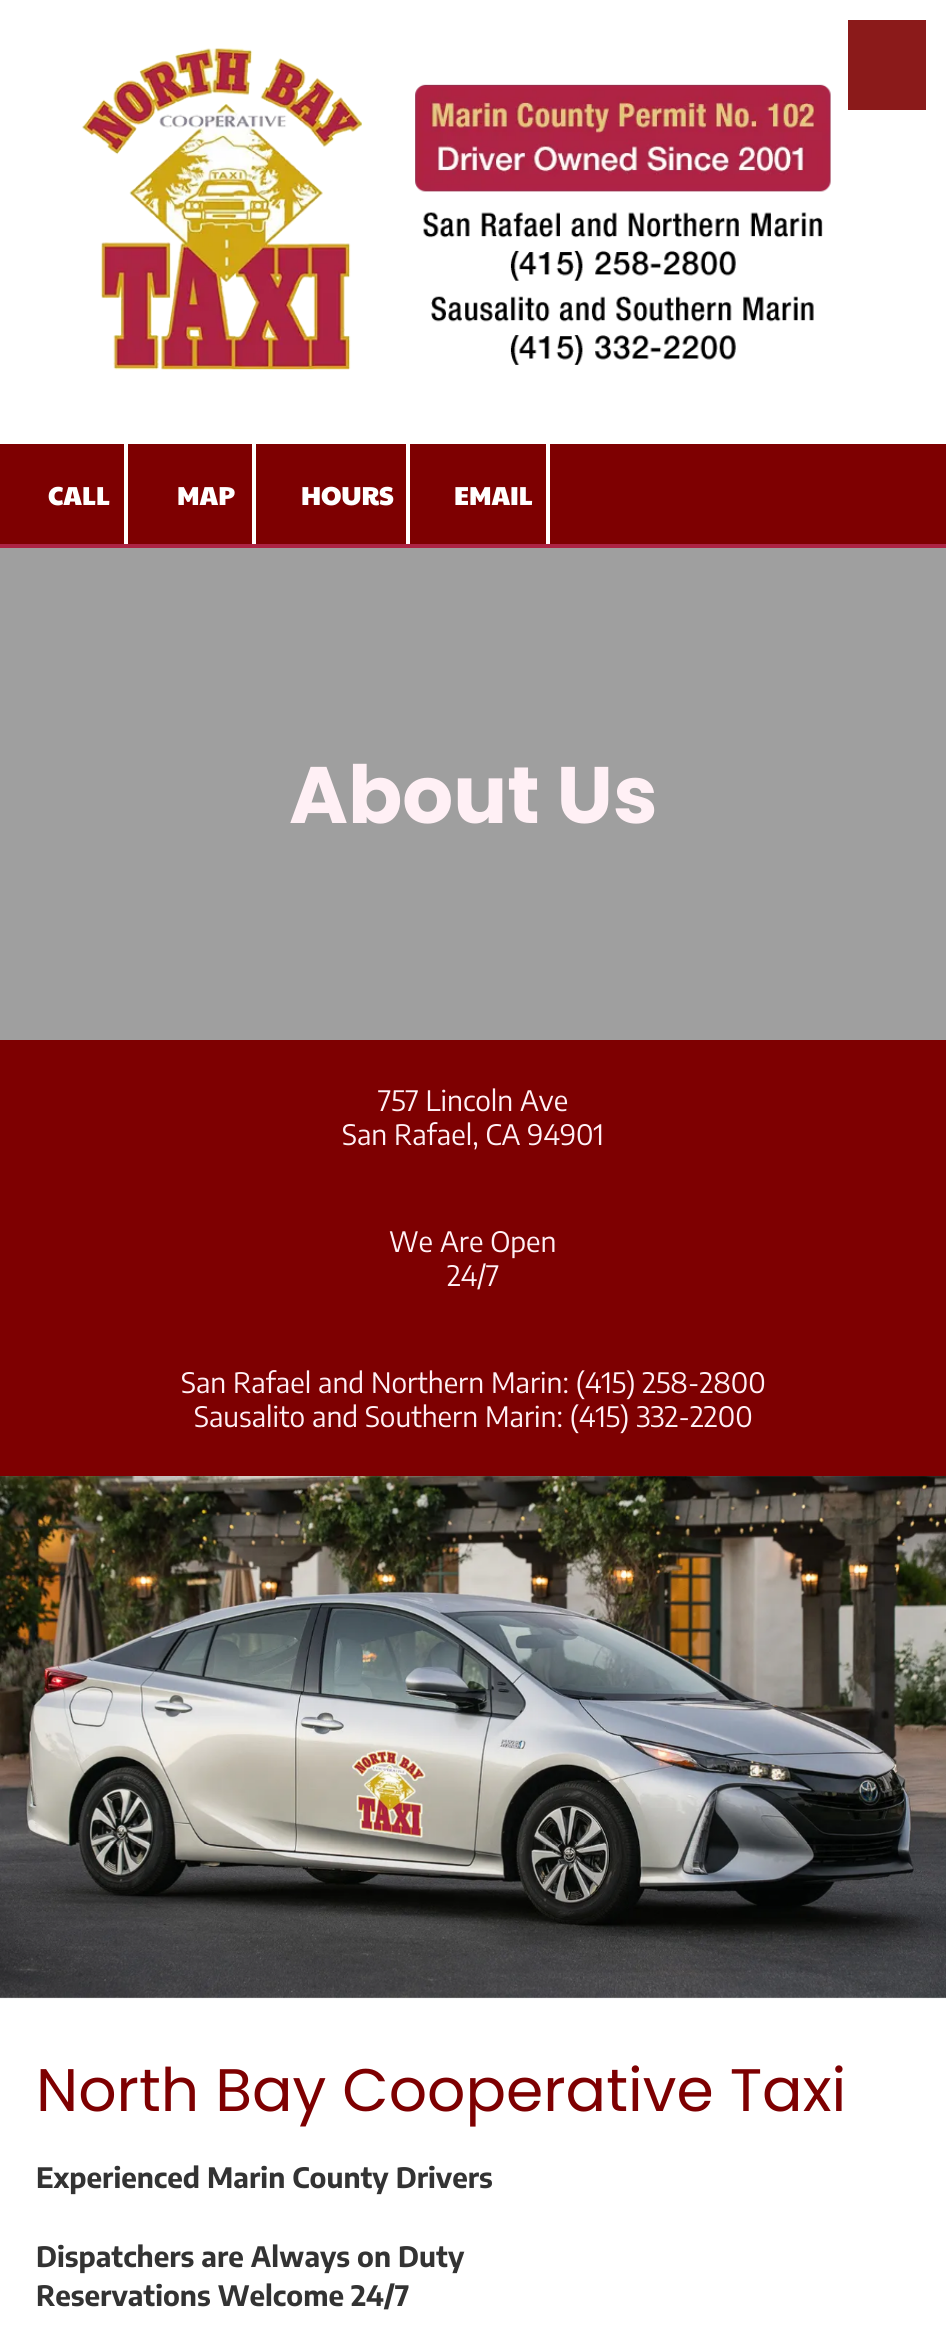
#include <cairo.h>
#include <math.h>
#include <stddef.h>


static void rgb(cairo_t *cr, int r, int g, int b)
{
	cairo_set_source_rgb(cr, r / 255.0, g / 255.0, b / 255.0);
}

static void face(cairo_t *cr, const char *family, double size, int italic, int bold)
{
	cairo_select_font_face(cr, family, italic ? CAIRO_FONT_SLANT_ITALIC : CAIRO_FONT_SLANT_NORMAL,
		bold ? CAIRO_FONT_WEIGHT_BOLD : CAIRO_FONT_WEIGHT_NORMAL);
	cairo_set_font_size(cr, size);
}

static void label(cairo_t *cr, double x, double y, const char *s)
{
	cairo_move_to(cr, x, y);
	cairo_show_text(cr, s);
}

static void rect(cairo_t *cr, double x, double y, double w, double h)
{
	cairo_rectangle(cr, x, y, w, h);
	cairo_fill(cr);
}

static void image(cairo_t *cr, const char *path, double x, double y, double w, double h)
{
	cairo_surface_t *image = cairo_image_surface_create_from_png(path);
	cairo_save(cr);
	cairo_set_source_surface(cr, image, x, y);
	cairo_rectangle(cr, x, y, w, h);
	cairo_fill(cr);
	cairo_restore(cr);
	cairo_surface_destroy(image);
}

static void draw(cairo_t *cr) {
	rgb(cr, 255, 255, 255);
	cairo_paint(cr);
	image(cr, "image0.png", 82, 48, 749, 322);
	rgb(cr, 139, 26, 26);
	rect(cr, 848, 20, 78, 90);
	rgb(cr, 126, 0, 1);
	rect(cr, 0, 444, 946, 100);
	rgb(cr, 255, 255, 255);
	rect(cr, 124, 444, 4, 100);
	face(cr, "Paytone One", 26, 0, 0);
	label(cr, 48, 505, "CALL");
	rect(cr, 252, 444, 4, 100);
	label(cr, 177, 505, "MAP");
	rect(cr, 406, 444, 4, 100);
	label(cr, 301, 505, "HOURS");
	rect(cr, 546, 444, 4, 100);
	label(cr, 454, 505, "EMAIL");
	rgb(cr, 173, 35, 68);
	rect(cr, 0, 544, 946, 4);
	rgb(cr, 159, 159, 159);
	rect(cr, 0, 548, 946, 492);
	face(cr, "Poppins", 80, 0, 1);
	rgb(cr, 255, 240, 245);
	label(cr, 289, 823, "About Us");
	rgb(cr, 126, 0, 1);
	rect(cr, 0, 1040, 946, 436);
	face(cr, "Encode Sans Condensed", 28, 0, 0);
	rgb(cr, 255, 240, 245);
	label(cr, 378, 1111, "757 Lincoln Ave");
	label(cr, 342, 1145, "San Rafael, CA 94901");
	label(cr, 389, 1252, "We Are Open");
	label(cr, 447, 1286, "24/7");
	label(cr, 181, 1393, "San Rafael and Northern Marin: (415) 258-2800");
	label(cr, 194, 1427, "Sausalito and Southern Marin: (415) 332-2200");
	image(cr, "image1.png", 0, 1476, 946, 523);
	face(cr, "Poppins", 60, 0, 0);
	rgb(cr, 126, 0, 1);
	label(cr, 36, 2111, "North Bay Cooperative Taxi");
	face(cr, "Encode Sans Condensed", 28, 0, 1);
	rgb(cr, 51, 51, 51);
	label(cr, 36, 2188, "Experienced Marin County Drivers");
	label(cr, 36, 2267, "Dispatchers are Always on Duty");
	label(cr, 36, 2306, "Reservations Welcome 24/7");
}

int main(void) {
	cairo_surface_t *surface = cairo_image_surface_create(CAIRO_FORMAT_RGB24, 946, 2325);
	cairo_t *cr = cairo_create(surface);
	cairo_font_options_t *options = cairo_font_options_create();
	cairo_font_options_set_hint_metrics(options, CAIRO_HINT_METRICS_OFF);
	cairo_font_options_set_hint_style(options, CAIRO_HINT_STYLE_NONE);
	cairo_set_font_options(cr, options);
	cairo_set_miter_limit(cr, 4);
	draw(cr);
	cairo_surface_write_to_png(surface, "render.png");
	cairo_font_options_destroy(options);
	cairo_destroy(cr);
	cairo_surface_destroy(surface);
	return 0;
}
